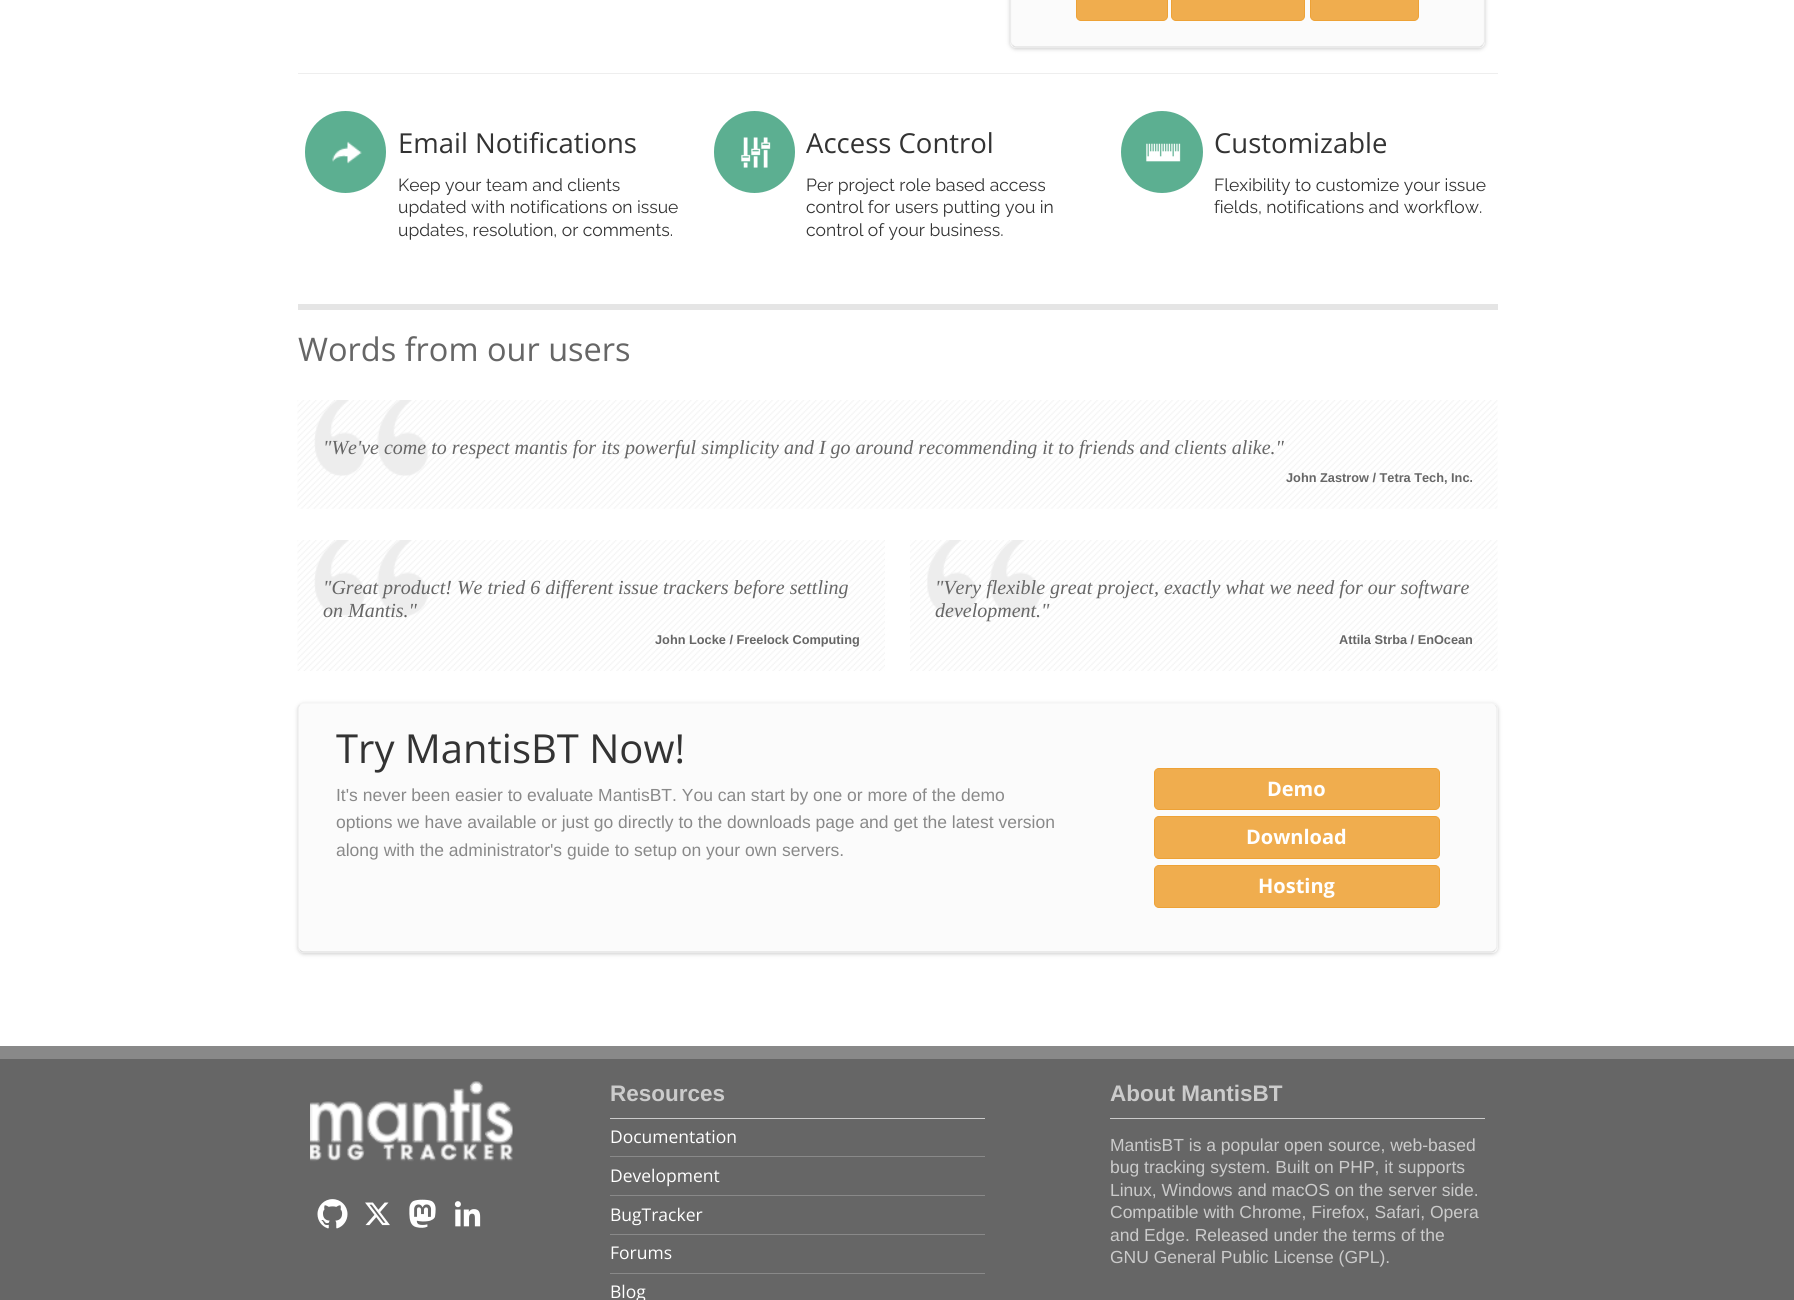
#include <cairo.h>
#include <math.h>
#include <stddef.h>


static void rgb(cairo_t *cr, int r, int g, int b)
{
	cairo_set_source_rgb(cr, r / 255.0, g / 255.0, b / 255.0);
}

static void face(cairo_t *cr, const char *family, double size, int italic, int bold)
{
	cairo_select_font_face(cr, family, italic ? CAIRO_FONT_SLANT_ITALIC : CAIRO_FONT_SLANT_NORMAL,
		bold ? CAIRO_FONT_WEIGHT_BOLD : CAIRO_FONT_WEIGHT_NORMAL);
	cairo_set_font_size(cr, size);
}

static void label(cairo_t *cr, double x, double y, const char *s)
{
	cairo_move_to(cr, x, y);
	cairo_show_text(cr, s);
}

static void rect(cairo_t *cr, double x, double y, double w, double h)
{
	cairo_rectangle(cr, x, y, w, h);
	cairo_fill(cr);
}

static void rrect(cairo_t *cr, double x, double y, double w, double h, double r)
{
	cairo_new_sub_path(cr);
	cairo_arc(cr, x + w - r, y + h - r, r, 0, M_PI / 2);
	cairo_arc(cr, x + r, y + h - r, r, M_PI / 2, M_PI);
	cairo_arc(cr, x + r, y + r, r, M_PI, 1.5 * M_PI);
	cairo_arc(cr, x + w - r, y + r, r, 1.5 * M_PI, 2 * M_PI);
	cairo_close_path(cr);
}

static void soft_shadow(cairo_t *cr, double x, double y, double w, double h, double r, double blur, double alpha)
{
	cairo_push_group_with_content(cr, CAIRO_CONTENT_ALPHA);
	cairo_set_operator(cr, CAIRO_OPERATOR_SOURCE);
	for (int i = 15; i >= -15 && fmin(w, h) + blur * i / 3 > 0; i -= 2) {
		double e = blur * i / 6;
		cairo_set_source_rgba(cr, 0, 0, 0, alpha * erfc((i - 1) / 8.5) / 2);
		rrect(cr, x - e, y - e, w + 2 * e, h + 2 * e, fmax(0, fmin(r + e + blur * .6, fmin(w, h) / 2 + e)));
		cairo_fill(cr);
	}
	cairo_pattern_t *soft = cairo_pop_group(cr);
	cairo_mask(cr, soft);
	cairo_pattern_destroy(soft);
}

static void image(cairo_t *cr, const char *path, double x, double y, double w, double h)
{
	cairo_surface_t *image = cairo_image_surface_create_from_png(path);
	cairo_save(cr);
	cairo_set_source_surface(cr, image, x, y);
	cairo_rectangle(cr, x, y, w, h);
	cairo_fill(cr);
	cairo_restore(cr);
	cairo_surface_destroy(image);
}

static void draw(cairo_t *cr) {
	rgb(cr, 255, 255, 255);
	cairo_paint(cr);
	rgb(cr, 204, 204, 204);
	soft_shadow(cr, 1010, -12, 475, 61, 6, 2, 1);
	rgb(cr, 251, 251, 251);
	rrect(cr, 1010, -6, 475, 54, 6);
	cairo_fill(cr);
	cairo_new_path(cr);
	cairo_move_to(cr, 1482.5, -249);
	cairo_curve_to(cr, 1484, -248, 1484.5, -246.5, 1484.5, -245);
	cairo_line_to(cr, 1484.5, 42);
	cairo_line_to(cr, 1482.5, 45);
	rgb(cr, 236, 236, 236);
	cairo_set_line_width(cr, 1.2);
	cairo_stroke(cr);
	cairo_new_path(cr);
	cairo_move_to(cr, 1482.5, 45);
	cairo_curve_to(cr, 1481.5, 46.5, 1480, 47, 1479, 47);
	cairo_line_to(cr, 1016, 47);
	cairo_curve_to(cr, 1015, 47, 1013.5, 46.5, 1012.5, 45);
	rgb(cr, 223, 223, 223);
	cairo_stroke(cr);
	cairo_new_path(cr);
	cairo_move_to(cr, 1012.5, 45);
	cairo_curve_to(cr, 1011, 44, 1010.5, 42.5, 1010.5, 41);
	cairo_line_to(cr, 1010.5, -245.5);
	cairo_line_to(cr, 1012.5, -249);
	rgb(cr, 236, 236, 236);
	cairo_stroke(cr);
	rgb(cr, 240, 173, 78);
	rrect(cr, 1076.5, -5.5, 91, 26, 4.5);
	cairo_fill_preserve(cr);
	rgb(cr, 238, 162, 54);
	cairo_set_line_width(cr, 1);
	cairo_stroke(cr);
	rgb(cr, 240, 173, 78);
	rrect(cr, 1171.5, -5.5, 133, 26, 4.5);
	cairo_fill_preserve(cr);
	rgb(cr, 238, 162, 54);
	cairo_stroke(cr);
	rgb(cr, 240, 173, 78);
	rrect(cr, 1310.5, -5.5, 108, 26, 4.5);
	cairo_fill_preserve(cr);
	rgb(cr, 238, 162, 54);
	cairo_stroke(cr);
	rgb(cr, 238, 238, 238);
	rect(cr, 298, 73, 1200, 1);
	rgb(cr, 92, 175, 145);
	rrect(cr, 305, 111, 81, 82, 40.5);
	cairo_fill(cr);
	image(cr, "image0.png", 332, 141, 30, 23);
	face(cr, "Open Sans", 27.5, 0, 0);
	rgb(cr, 51, 51, 51);
	label(cr, 398, 153, "Email Notifications");
	face(cr, "Raleway", 17.5, 0, 0);
	label(cr, 398, 191, "Keep your team and clients");
	label(cr, 398, 213, "updated with notifications on issue");
	label(cr, 398, 236, "updates, resolution, or comments.");
	rgb(cr, 92, 175, 145);
	rrect(cr, 714, 111, 81, 82, 40.5);
	cairo_fill(cr);
	image(cr, "image1.png", 741, 137, 30, 31);
	face(cr, "Open Sans", 27.5, 0, 0);
	rgb(cr, 51, 51, 51);
	label(cr, 806, 153, "Access Control");
	face(cr, "Raleway", 17.5, 0, 0);
	label(cr, 806, 191, "Per project role based access");
	label(cr, 806, 213, "control for users putting you in");
	label(cr, 806, 236, "control of your business.");
	rgb(cr, 92, 175, 145);
	cairo_new_path(cr);
	cairo_arc(cr, 1162, 152, 41, 0, 2 * M_PI);
	cairo_fill(cr);
	image(cr, "image2.png", 1146, 143, 35, 19);
	face(cr, "Open Sans", 27.5, 0, 0);
	rgb(cr, 51, 51, 51);
	label(cr, 1214, 153, "Customizable");
	face(cr, "Raleway", 17.5, 0, 0);
	label(cr, 1214, 191, "Flexibility to customize your issue");
	label(cr, 1214, 213, "fields, notifications and workflow.");
	rgb(cr, 229, 229, 229);
	rect(cr, 298, 304, 1200, 6);
	face(cr, "Open Sans", 32.5, 0, 0);
	rgb(cr, 102, 102, 102);
	label(cr, 298, 361, "Words from our users");
	image(cr, "image3.png", 297, 400, 1201, 109);
	image(cr, "image4.png", 314, 400, 114, 76);
	face(cr, "Liberation Serif", 20, 1, 0);
	label(cr, 323, 454, "\"We've come to respect mantis for its powerful simplicity and I go around recommending it to friends and clients alike.\"");
	face(cr, "Liberation Sans", 12.75, 0, 1);
	label(cr, 1286, 482, "John Zastrow / Tetra Tech, Inc.");
	image(cr, "image5.png", 297, 540, 588, 131);
	image(cr, "image6.png", 314, 540, 114, 76);
	face(cr, "Liberation Serif", 20, 1, 0);
	label(cr, 323, 594, "\"Great product! We tried 6 different issue trackers before settling");
	label(cr, 323, 617, "on Mantis.\"");
	face(cr, "Liberation Sans", 12.75, 0, 1);
	label(cr, 655, 644, "John Locke / Freelock Computing");
	image(cr, "image7.png", 910, 540, 588, 131);
	image(cr, "image8.png", 927, 540, 113, 76);
	face(cr, "Liberation Serif", 20, 1, 0);
	label(cr, 935, 594, "\"Very flexible great project, exactly what we need for our software");
	label(cr, 935, 617, "development.\"");
	face(cr, "Liberation Sans", 12.75, 0, 1);
	label(cr, 1339, 644, "Attila Strba / EnOcean");
	rgb(cr, 204, 204, 204);
	soft_shadow(cr, 298, 704, 1200, 250, 6, 2, 1);
	rgb(cr, 251, 251, 251);
	rrect(cr, 298, 703, 1200, 250, 6);
	cairo_fill(cr);
	cairo_new_path(cr);
	cairo_move_to(cr, 300, 705);
	cairo_curve_to(cr, 301, 703.5, 302.5, 703, 304, 703);
	cairo_line_to(cr, 1491, 703);
	cairo_curve_to(cr, 1492.5, 703, 1494, 703.5, 1495, 705);
	rgb(cr, 245, 245, 245);
	cairo_set_line_width(cr, 1.2);
	cairo_stroke(cr);
	cairo_new_path(cr);
	cairo_move_to(cr, 1495, 705);
	cairo_curve_to(cr, 1496.5, 706, 1497, 707.5, 1497, 709);
	cairo_line_to(cr, 1497, 946);
	cairo_curve_to(cr, 1497, 947.5, 1496.5, 949, 1495, 950);
	rgb(cr, 236, 236, 236);
	cairo_stroke(cr);
	cairo_new_path(cr);
	cairo_move_to(cr, 1495, 950);
	cairo_curve_to(cr, 1494, 951.5, 1492.5, 952, 1491, 952);
	cairo_line_to(cr, 304, 952);
	cairo_curve_to(cr, 302.5, 952, 301, 951.5, 300, 950);
	rgb(cr, 223, 223, 223);
	cairo_stroke(cr);
	cairo_new_path(cr);
	cairo_move_to(cr, 300, 950);
	cairo_curve_to(cr, 298.5, 949, 298, 947.5, 298, 946);
	cairo_line_to(cr, 298, 709);
	cairo_curve_to(cr, 298, 707.5, 298.5, 706, 300, 705);
	rgb(cr, 236, 236, 236);
	cairo_stroke(cr);
	face(cr, "Open Sans", 40, 0, 0);
	rgb(cr, 51, 51, 51);
	label(cr, 336, 763, "Try MantisBT Now!");
	face(cr, "Liberation Sans", 17.5, 0, 0);
	rgb(cr, 137, 137, 137);
	label(cr, 336, 801, "It's never been easier to evaluate MantisBT. You can start by one or more of the demo");
	label(cr, 336, 828, "options we have available or just go directly to the downloads page and get the latest version");
	label(cr, 336, 856, "along with the administrator's guide to setup on your own servers.");
	rgb(cr, 240, 173, 78);
	rrect(cr, 1154.5, 768.5, 285, 41, 4.5);
	cairo_fill_preserve(cr);
	rgb(cr, 238, 162, 54);
	cairo_set_line_width(cr, 1);
	cairo_stroke(cr);
	face(cr, "Open Sans", 20, 0, 1);
	rgb(cr, 255, 255, 255);
	label(cr, 1267, 796, "Demo");
	rgb(cr, 240, 173, 78);
	rrect(cr, 1154.5, 816.5, 285, 42, 4.5);
	cairo_fill_preserve(cr);
	rgb(cr, 238, 162, 54);
	cairo_stroke(cr);
	rgb(cr, 255, 255, 255);
	label(cr, 1246, 844, "Download");
	rgb(cr, 240, 173, 78);
	rrect(cr, 1154.5, 865.5, 285, 42, 4.5);
	cairo_fill_preserve(cr);
	rgb(cr, 238, 162, 54);
	cairo_stroke(cr);
	rgb(cr, 255, 255, 255);
	label(cr, 1258, 893, "Hosting");
	rgb(cr, 137, 137, 137);
	rect(cr, 0, 1046, 1794, 13);
	rgb(cr, 102, 102, 102);
	rect(cr, 0, 1059, 1794, 241);
	image(cr, "image9.png", 310, 1081, 203, 81);
	image(cr, "image10.png", 317, 1199, 31, 30);
	image(cr, "image11.png", 365, 1202, 25, 24);
	image(cr, "image12.png", 409, 1199, 27, 29);
	image(cr, "image13.png", 454, 1201, 27, 26);
	rgb(cr, 203, 203, 203);
	rect(cr, 610, 1118, 375, 1);
	face(cr, "Liberation Sans", 22.5, 0, 1);
	label(cr, 610, 1101, "Resources");
	rgb(cr, 137, 137, 137);
	rect(cr, 610, 1156, 375, 1);
	face(cr, "Open Sans", 17.5, 0, 0);
	rgb(cr, 255, 255, 255);
	label(cr, 610, 1143, "Documentation");
	rgb(cr, 137, 137, 137);
	rect(cr, 610, 1195, 375, 1);
	rgb(cr, 255, 255, 255);
	label(cr, 610, 1182, "Development");
	rgb(cr, 137, 137, 137);
	rect(cr, 610, 1234, 375, 1);
	rgb(cr, 255, 255, 255);
	label(cr, 610, 1221, "BugTracker");
	rgb(cr, 137, 137, 137);
	rect(cr, 610, 1273, 375, 1);
	rgb(cr, 255, 255, 255);
	label(cr, 610, 1259, "Forums");
	label(cr, 610, 1298, "Blog");
	rgb(cr, 203, 203, 203);
	rect(cr, 1110, 1118, 375, 1);
	face(cr, "Liberation Sans", 22.5, 0, 1);
	label(cr, 1110, 1101, "About MantisBT");
	face(cr, "Liberation Sans", 17.5, 0, 0);
	label(cr, 1110, 1151, "MantisBT is a popular open source, web-based");
	label(cr, 1110, 1173, "bug tracking system. Built on PHP, it supports");
	label(cr, 1110, 1196, "Linux, Windows and macOS on the server side.");
	label(cr, 1110, 1218, "Compatible with Chrome, Firefox, Safari, Opera");
	label(cr, 1110, 1241, "and Edge. Released under the terms of the");
	label(cr, 1110, 1263, "GNU General Public License (GPL).");
}

int main(void) {
	cairo_surface_t *surface = cairo_image_surface_create(CAIRO_FORMAT_RGB24, 1794, 1300);
	cairo_t *cr = cairo_create(surface);
	cairo_font_options_t *options = cairo_font_options_create();
	cairo_font_options_set_hint_metrics(options, CAIRO_HINT_METRICS_OFF);
	cairo_font_options_set_hint_style(options, CAIRO_HINT_STYLE_NONE);
	cairo_set_font_options(cr, options);
	cairo_set_miter_limit(cr, 4);
	draw(cr);
	cairo_surface_write_to_png(surface, "render.png");
	cairo_font_options_destroy(options);
	cairo_destroy(cr);
	cairo_surface_destroy(surface);
	return 0;
}
